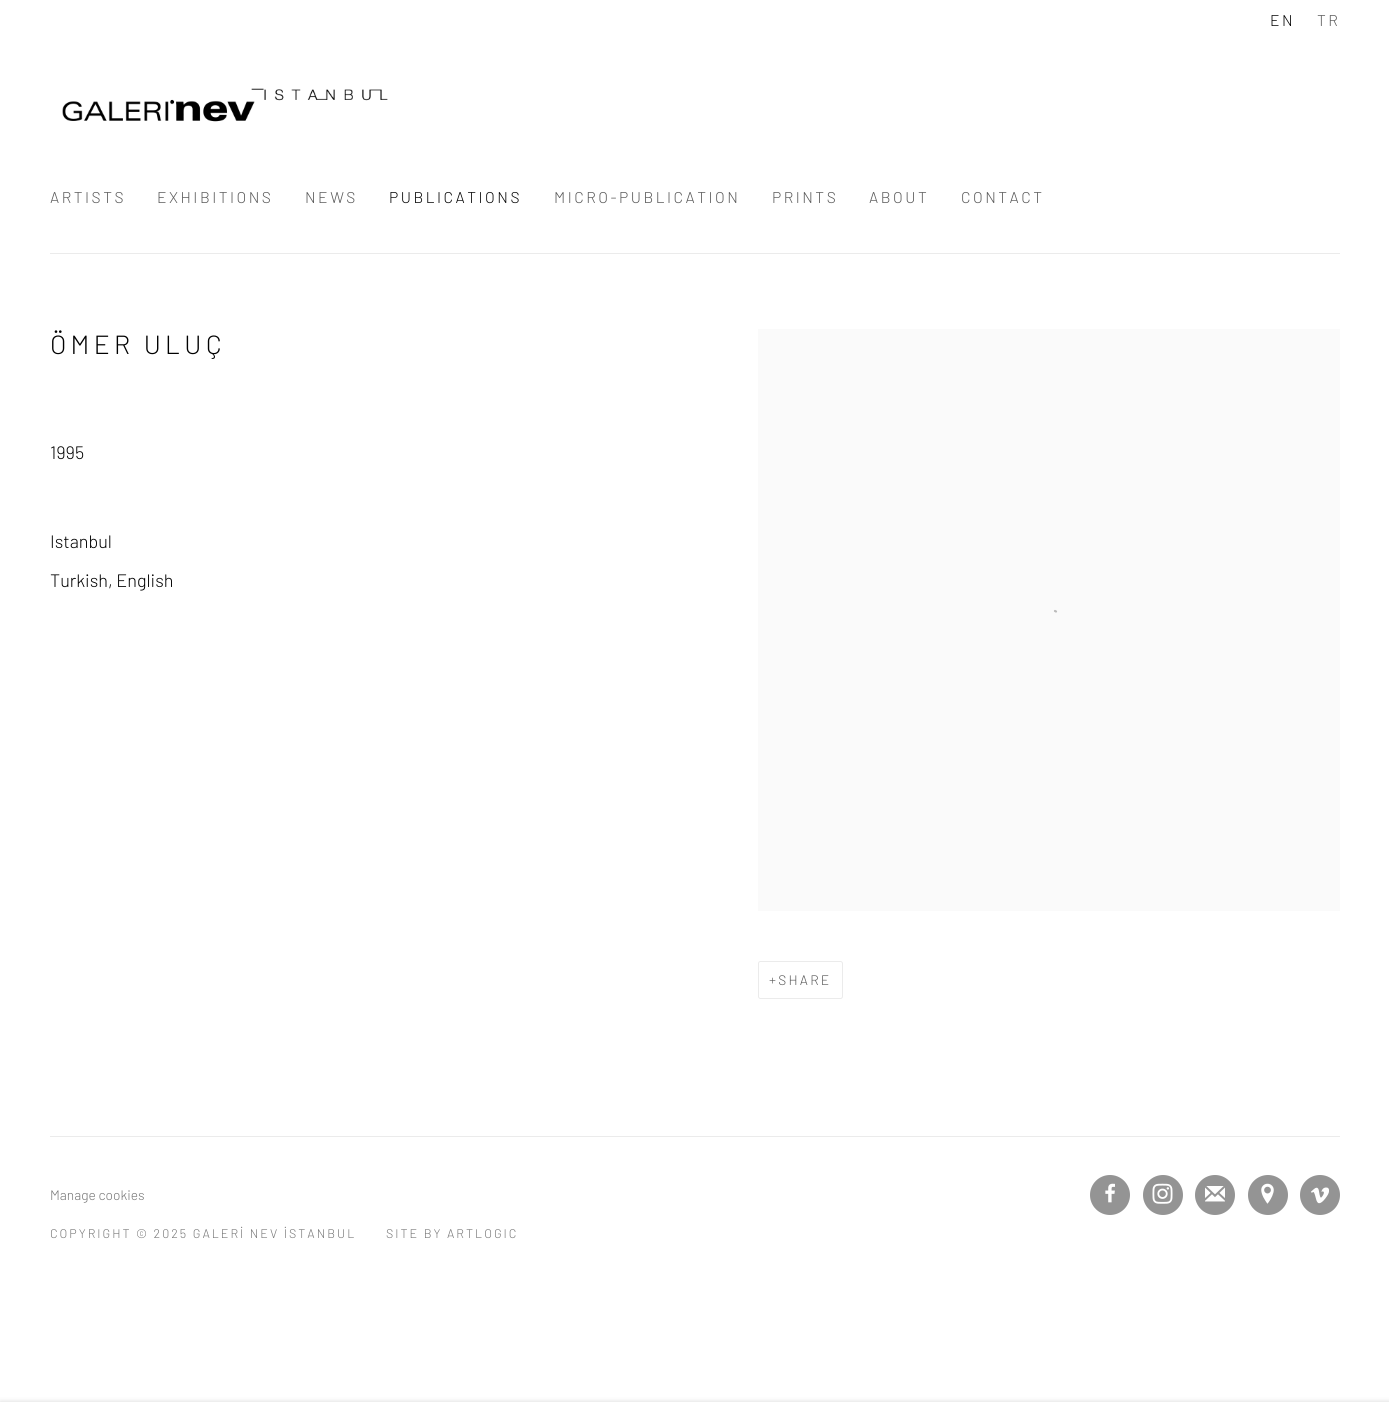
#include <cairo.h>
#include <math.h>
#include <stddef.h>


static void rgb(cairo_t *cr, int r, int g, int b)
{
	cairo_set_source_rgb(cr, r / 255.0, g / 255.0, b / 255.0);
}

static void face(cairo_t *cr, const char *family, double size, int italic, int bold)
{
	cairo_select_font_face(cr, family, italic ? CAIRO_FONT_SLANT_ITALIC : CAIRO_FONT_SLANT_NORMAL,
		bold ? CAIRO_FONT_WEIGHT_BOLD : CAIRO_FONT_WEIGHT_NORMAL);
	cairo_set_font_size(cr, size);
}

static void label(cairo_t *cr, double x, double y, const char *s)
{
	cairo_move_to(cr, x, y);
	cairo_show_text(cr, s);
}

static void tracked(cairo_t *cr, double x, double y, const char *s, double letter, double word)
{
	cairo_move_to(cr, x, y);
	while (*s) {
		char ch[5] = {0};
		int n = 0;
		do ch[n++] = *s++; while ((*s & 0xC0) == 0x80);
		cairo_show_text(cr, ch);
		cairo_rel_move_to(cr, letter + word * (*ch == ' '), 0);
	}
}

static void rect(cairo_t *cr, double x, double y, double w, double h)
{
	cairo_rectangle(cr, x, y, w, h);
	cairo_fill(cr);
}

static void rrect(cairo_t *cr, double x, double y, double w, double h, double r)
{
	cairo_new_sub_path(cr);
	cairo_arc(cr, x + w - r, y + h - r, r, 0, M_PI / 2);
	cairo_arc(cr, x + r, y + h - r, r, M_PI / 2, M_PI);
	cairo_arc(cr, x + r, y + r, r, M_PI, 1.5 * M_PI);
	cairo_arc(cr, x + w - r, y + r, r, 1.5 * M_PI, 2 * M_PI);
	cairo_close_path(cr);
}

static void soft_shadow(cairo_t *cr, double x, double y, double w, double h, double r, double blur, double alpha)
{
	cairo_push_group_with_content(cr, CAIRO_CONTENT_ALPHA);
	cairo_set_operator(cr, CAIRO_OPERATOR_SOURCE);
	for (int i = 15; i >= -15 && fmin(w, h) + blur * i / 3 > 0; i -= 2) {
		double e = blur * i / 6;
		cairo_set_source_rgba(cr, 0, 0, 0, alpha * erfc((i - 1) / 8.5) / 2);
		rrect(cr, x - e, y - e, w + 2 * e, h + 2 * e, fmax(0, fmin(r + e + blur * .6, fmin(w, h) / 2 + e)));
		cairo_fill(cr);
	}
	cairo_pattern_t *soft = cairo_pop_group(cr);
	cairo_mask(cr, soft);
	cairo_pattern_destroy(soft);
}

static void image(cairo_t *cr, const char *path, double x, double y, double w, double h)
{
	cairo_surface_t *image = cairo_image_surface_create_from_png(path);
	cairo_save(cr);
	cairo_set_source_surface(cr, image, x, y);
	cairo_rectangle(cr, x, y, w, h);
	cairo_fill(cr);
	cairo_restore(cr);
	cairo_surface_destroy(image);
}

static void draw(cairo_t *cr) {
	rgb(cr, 255, 255, 255);
	cairo_paint(cr);
	rgb(cr, 235, 235, 235);
	rect(cr, 50, 253, 1290, 1);
	face(cr, "Barlow Light", 15.6, 0, 0);
	rgb(cr, 1, 1, 1);
	tracked(cr, 1270, 26, "EN", 2.5, 0);
	rgb(cr, 88, 88, 88);
	tracked(cr, 1317, 26, "TR", 2.5, 0);
	tracked(cr, 50, 203, "ARTISTS", 2.5, 0);
	tracked(cr, 157, 203, "EXHIBITIONS", 2.5, 0);
	tracked(cr, 305, 203, "NEWS", 2.5, 0);
	rgb(cr, 1, 1, 1);
	tracked(cr, 389, 203, "PUBLICATIONS", 2.5, 0);
	rgb(cr, 88, 88, 88);
	tracked(cr, 554, 203, "MICRO-PUBLICATION", 2.5, 0);
	tracked(cr, 772, 203, "PRINTS", 2.5, 0);
	tracked(cr, 869, 203, "ABOUT", 2.5, 0);
	tracked(cr, 961, 203, "CONTACT", 2.5, 0);
	image(cr, "image0.png", 62, 88, 326, 34);
	face(cr, "Barlow Light", 26.25, 0, 0);
	rgb(cr, 1, 1, 1);
	tracked(cr, 50, 354, "ÖMER ULUÇ", 4.25, 0);
	face(cr, "Barlow Light", 18, 0, 0);
	label(cr, 50, 459, "1995");
	label(cr, 50, 548, "Istanbul");
	label(cr, 50, 587, "Turkish, English");
	rgb(cr, 250, 250, 250);
	rect(cr, 758, 329, 582, 582);
	cairo_new_path(cr);
	cairo_move_to(cr, 1055, 611);
	cairo_line_to(cr, 1056, 611.5);
	rgb(cr, 187, 187, 187);
	cairo_set_line_width(cr, 2.2);
	cairo_set_line_cap(cr, CAIRO_LINE_CAP_ROUND);
	cairo_stroke(cr);
	rrect(cr, 758.5, 961.5, 84, 37, 2);
	rgb(cr, 235, 235, 235);
	cairo_set_line_width(cr, 1);
	cairo_set_line_cap(cr, CAIRO_LINE_CAP_BUTT);
	cairo_stroke(cr);
	face(cr, "Barlow Light", 13.75, 0, 0);
	rgb(cr, 88, 88, 88);
	tracked(cr, 769, 985, "+SHARE", 2.25, 0);
	rgb(cr, 235, 235, 235);
	rect(cr, 50, 1136, 1290, 1);
	rgb(cr, 115, 115, 115);
	label(cr, 50, 1200, "Manage cookies");
	face(cr, "Barlow Light", 12.5, 0, 0);
	tracked(cr, 50, 1238, "COPYRIGHT © 2025 GALERİ NEV İSTANBUL", 2, 0);
	tracked(cr, 386, 1238, "SITE BY ARTLOGIC", 2, 0);
	rgb(cr, 148, 148, 148);
	cairo_new_path(cr);
	cairo_arc(cr, 1110, 1195, 20, 0, 2 * M_PI);
	cairo_fill(cr);
	image(cr, "image1.png", 1105, 1183, 10, 20);
	cairo_arc(cr, 1163, 1195, 20, 0, 2 * M_PI);
	cairo_fill(cr);
	image(cr, "image2.png", 1152, 1183, 21, 21);
	cairo_arc(cr, 1215, 1195, 20, 0, 2 * M_PI);
	cairo_fill(cr);
	image(cr, "image3.png", 1205, 1186, 20, 16);
	cairo_arc(cr, 1268, 1195, 20, 0, 2 * M_PI);
	cairo_fill(cr);
	image(cr, "image4.png", 1261, 1183, 13, 21);
	cairo_arc(cr, 1320, 1195, 20, 0, 2 * M_PI);
	cairo_fill(cr);
	image(cr, "image5.png", 1311, 1187, 18, 17);
	rgb(cr, 0, 0, 0);
	soft_shadow(cr, 0, 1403, 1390, 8, 0, 3, 0.23);
}

int main(void) {
	cairo_surface_t *surface = cairo_image_surface_create(CAIRO_FORMAT_RGB24, 1389, 1402);
	cairo_t *cr = cairo_create(surface);
	cairo_font_options_t *options = cairo_font_options_create();
	cairo_font_options_set_hint_metrics(options, CAIRO_HINT_METRICS_OFF);
	cairo_font_options_set_hint_style(options, CAIRO_HINT_STYLE_NONE);
	cairo_set_font_options(cr, options);
	cairo_set_miter_limit(cr, 4);
	draw(cr);
	cairo_surface_write_to_png(surface, "render.png");
	cairo_font_options_destroy(options);
	cairo_destroy(cr);
	cairo_surface_destroy(surface);
	return 0;
}
